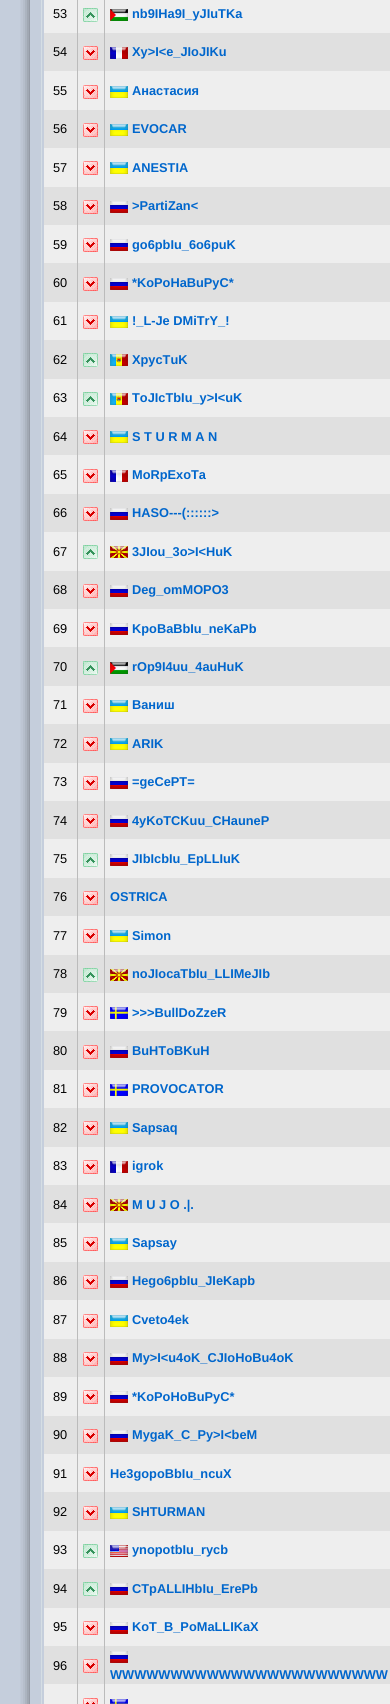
#include <cairo.h>
#include <math.h>
#include <stddef.h>


static void rgb(cairo_t *cr, int r, int g, int b)
{
	cairo_set_source_rgb(cr, r / 255.0, g / 255.0, b / 255.0);
}

static void face(cairo_t *cr, const char *family, double size, int italic, int bold)
{
	cairo_select_font_face(cr, family, italic ? CAIRO_FONT_SLANT_ITALIC : CAIRO_FONT_SLANT_NORMAL,
		bold ? CAIRO_FONT_WEIGHT_BOLD : CAIRO_FONT_WEIGHT_NORMAL);
	cairo_set_font_size(cr, size);
}

static void label(cairo_t *cr, double x, double y, const char *s)
{
	cairo_move_to(cr, x, y);
	cairo_show_text(cr, s);
}

static void rect(cairo_t *cr, double x, double y, double w, double h)
{
	cairo_rectangle(cr, x, y, w, h);
	cairo_fill(cr);
}

static void rrect(cairo_t *cr, double x, double y, double w, double h, double r)
{
	cairo_new_sub_path(cr);
	cairo_arc(cr, x + w - r, y + h - r, r, 0, M_PI / 2);
	cairo_arc(cr, x + r, y + h - r, r, M_PI / 2, M_PI);
	cairo_arc(cr, x + r, y + r, r, M_PI, 1.5 * M_PI);
	cairo_arc(cr, x + w - r, y + r, r, 1.5 * M_PI, 2 * M_PI);
	cairo_close_path(cr);
}

static void soft_shadow(cairo_t *cr, double x, double y, double w, double h, double r, double blur, double alpha)
{
	cairo_push_group_with_content(cr, CAIRO_CONTENT_ALPHA);
	cairo_set_operator(cr, CAIRO_OPERATOR_SOURCE);
	for (int i = 15; i >= -15 && fmin(w, h) + blur * i / 3 > 0; i -= 2) {
		double e = blur * i / 6;
		cairo_set_source_rgba(cr, 0, 0, 0, alpha * erfc((i - 1) / 8.5) / 2);
		rrect(cr, x - e, y - e, w + 2 * e, h + 2 * e, fmax(0, fmin(r + e + blur * .6, fmin(w, h) / 2 + e)));
		cairo_fill(cr);
	}
	cairo_pattern_t *soft = cairo_pop_group(cr);
	cairo_mask(cr, soft);
	cairo_pattern_destroy(soft);
}

static void image(cairo_t *cr, const char *path, double x, double y, double w, double h)
{
	cairo_surface_t *image = cairo_image_surface_create_from_png(path);
	cairo_save(cr);
	cairo_set_source_surface(cr, image, x, y);
	cairo_rectangle(cr, x, y, w, h);
	cairo_fill(cr);
	cairo_restore(cr);
	cairo_surface_destroy(image);
}

static void draw(cairo_t *cr) {
	rgb(cr, 197, 206, 220);
	cairo_paint(cr);
	cairo_save(cr);
	cairo_rectangle(cr, 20, 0, 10, 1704);
	cairo_clip(cr);
	rgb(cr, 0, 0, 0);
	soft_shadow(cr, 30, -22, 330, 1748, 4, 6, 0.5);
	cairo_restore(cr);
	cairo_rectangle(cr, 41.5, -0.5, 307, 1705);
	rgb(cr, 213, 222, 228);
	cairo_set_line_width(cr, 1);
	cairo_stroke(cr);
	rgb(cr, 238, 238, 238);
	rect(cr, 44, 1684, 346, 20);
	rect(cr, 44, 0, 346, 33);
	rgb(cr, 224, 224, 224);
	rect(cr, 44, 33, 346, 38);
	rgb(cr, 238, 238, 238);
	rect(cr, 44, 71, 346, 39);
	rgb(cr, 224, 224, 224);
	rect(cr, 44, 110, 346, 38);
	rgb(cr, 238, 238, 238);
	rect(cr, 44, 148, 346, 39);
	rgb(cr, 224, 224, 224);
	rect(cr, 44, 187, 346, 38);
	rgb(cr, 238, 238, 238);
	rect(cr, 44, 225, 346, 38);
	rgb(cr, 224, 224, 224);
	rect(cr, 44, 263, 346, 39);
	rgb(cr, 238, 238, 238);
	rect(cr, 44, 302, 346, 38);
	rgb(cr, 224, 224, 224);
	rect(cr, 44, 340, 346, 39);
	rgb(cr, 238, 238, 238);
	rect(cr, 44, 379, 346, 38);
	rgb(cr, 224, 224, 224);
	rect(cr, 44, 417, 346, 38);
	rgb(cr, 238, 238, 238);
	rect(cr, 44, 455, 346, 39);
	rgb(cr, 224, 224, 224);
	rect(cr, 44, 494, 346, 38);
	rgb(cr, 238, 238, 238);
	rect(cr, 44, 532, 346, 39);
	rgb(cr, 224, 224, 224);
	rect(cr, 44, 571, 346, 38);
	rgb(cr, 238, 238, 238);
	rect(cr, 44, 609, 346, 38);
	rgb(cr, 224, 224, 224);
	rect(cr, 44, 647, 346, 39);
	rgb(cr, 238, 238, 238);
	rect(cr, 44, 686, 346, 38);
	rgb(cr, 224, 224, 224);
	rect(cr, 44, 724, 346, 39);
	rgb(cr, 238, 238, 238);
	rect(cr, 44, 763, 346, 38);
	rgb(cr, 224, 224, 224);
	rect(cr, 44, 801, 346, 38);
	rgb(cr, 238, 238, 238);
	rect(cr, 44, 839, 346, 39);
	rgb(cr, 224, 224, 224);
	rect(cr, 44, 878, 346, 38);
	rgb(cr, 238, 238, 238);
	rect(cr, 44, 916, 346, 39);
	rgb(cr, 224, 224, 224);
	rect(cr, 44, 955, 346, 38);
	rgb(cr, 238, 238, 238);
	rect(cr, 44, 993, 346, 38);
	rgb(cr, 224, 224, 224);
	rect(cr, 44, 1031, 346, 39);
	rgb(cr, 238, 238, 238);
	rect(cr, 44, 1070, 346, 38);
	rgb(cr, 224, 224, 224);
	rect(cr, 44, 1108, 346, 39);
	rgb(cr, 238, 238, 238);
	rect(cr, 44, 1147, 346, 38);
	rgb(cr, 224, 224, 224);
	rect(cr, 44, 1185, 346, 38);
	rgb(cr, 238, 238, 238);
	rect(cr, 44, 1223, 346, 39);
	rgb(cr, 224, 224, 224);
	rect(cr, 44, 1262, 346, 38);
	rgb(cr, 238, 238, 238);
	rect(cr, 44, 1300, 346, 39);
	rgb(cr, 224, 224, 224);
	rect(cr, 44, 1339, 346, 38);
	rgb(cr, 238, 238, 238);
	rect(cr, 44, 1377, 346, 39);
	rgb(cr, 224, 224, 224);
	rect(cr, 44, 1416, 346, 38);
	rgb(cr, 238, 238, 238);
	rect(cr, 44, 1454, 346, 38);
	rgb(cr, 224, 224, 224);
	rect(cr, 44, 1492, 346, 39);
	rgb(cr, 238, 238, 238);
	rect(cr, 44, 1531, 346, 38);
	rgb(cr, 224, 224, 224);
	rect(cr, 44, 1569, 346, 39);
	rgb(cr, 238, 238, 238);
	rect(cr, 44, 1608, 346, 38);
	rgb(cr, 224, 224, 224);
	rect(cr, 44, 1646, 346, 38);
	rgb(cr, 187, 187, 187);
	rect(cr, 77, 0, 1, 1704);
	rect(cr, 104, 0, 1, 1704);
	image(cr, "image0.png", 83, 1698, 15, 6);
	image(cr, "image1.png", 110, 1699, 18, 5);
	face(cr, "Liberation Sans", 12.8, 0, 0);
	rgb(cr, 0, 0, 0);
	label(cr, 53, 18, "53");
	image(cr, "image2.png", 83, 8, 15, 14);
	image(cr, "image3.png", 110, 9, 18, 12);
	face(cr, "Liberation Sans", 12.8, 0, 1);
	rgb(cr, 0, 102, 204);
	label(cr, 132, 18, "nb9IHa9I_yJIuTKa");
	face(cr, "Liberation Sans", 12.8, 0, 0);
	rgb(cr, 0, 0, 0);
	label(cr, 53, 56, "54");
	image(cr, "image4.png", 83, 46, 15, 14);
	image(cr, "image5.png", 110, 47, 18, 12);
	face(cr, "Liberation Sans", 12.8, 0, 1);
	rgb(cr, 0, 102, 204);
	label(cr, 132, 56, "Xy>I<e_JIoJIKu");
	face(cr, "Liberation Sans", 12.8, 0, 0);
	rgb(cr, 0, 0, 0);
	label(cr, 53, 95, "55");
	image(cr, "image4.png", 83, 85, 15, 14);
	image(cr, "image6.png", 110, 86, 18, 12);
	face(cr, "Liberation Sans", 12.8, 0, 1);
	rgb(cr, 0, 102, 204);
	label(cr, 132, 95, "Анастасия");
	face(cr, "Liberation Sans", 12.8, 0, 0);
	rgb(cr, 0, 0, 0);
	label(cr, 53, 133, "56");
	image(cr, "image4.png", 83, 123, 15, 14);
	image(cr, "image7.png", 110, 124, 18, 12);
	face(cr, "Liberation Sans", 12.8, 0, 1);
	rgb(cr, 0, 102, 204);
	label(cr, 132, 133, "EVOCAR");
	face(cr, "Liberation Sans", 12.8, 0, 0);
	rgb(cr, 0, 0, 0);
	label(cr, 53, 172, "57");
	image(cr, "image4.png", 83, 161, 15, 14);
	image(cr, "image6.png", 110, 162, 18, 12);
	face(cr, "Liberation Sans", 12.8, 0, 1);
	rgb(cr, 0, 102, 204);
	label(cr, 132, 172, "ANESTIA");
	face(cr, "Liberation Sans", 12.8, 0, 0);
	rgb(cr, 0, 0, 0);
	label(cr, 53, 210, "58");
	image(cr, "image4.png", 83, 200, 15, 14);
	image(cr, "image8.png", 110, 201, 18, 12);
	face(cr, "Liberation Sans", 12.8, 0, 1);
	rgb(cr, 0, 102, 204);
	label(cr, 132, 210, ">PartiZan<");
	face(cr, "Liberation Sans", 12.8, 0, 0);
	rgb(cr, 0, 0, 0);
	label(cr, 53, 249, "59");
	image(cr, "image4.png", 83, 238, 15, 14);
	image(cr, "image9.png", 110, 239, 18, 12);
	face(cr, "Liberation Sans", 12.8, 0, 1);
	rgb(cr, 0, 102, 204);
	label(cr, 132, 249, "go6pbIu_6o6puK");
	face(cr, "Liberation Sans", 12.8, 0, 0);
	rgb(cr, 0, 0, 0);
	label(cr, 53, 287, "60");
	image(cr, "image4.png", 83, 277, 15, 14);
	image(cr, "image8.png", 110, 278, 18, 12);
	face(cr, "Liberation Sans", 12.8, 0, 1);
	rgb(cr, 0, 102, 204);
	label(cr, 132, 287, "*KoPoHaBuPyC*");
	face(cr, "Liberation Sans", 12.8, 0, 0);
	rgb(cr, 0, 0, 0);
	label(cr, 53, 325, "61");
	image(cr, "image4.png", 83, 315, 15, 14);
	image(cr, "image6.png", 110, 316, 18, 12);
	face(cr, "Liberation Sans", 12.8, 0, 1);
	rgb(cr, 0, 102, 204);
	label(cr, 132, 325, "!_L-Je DMiTrY_!");
	face(cr, "Liberation Sans", 12.8, 0, 0);
	rgb(cr, 0, 0, 0);
	label(cr, 53, 364, "62");
	image(cr, "image2.png", 83, 353, 15, 14);
	image(cr, "image10.png", 110, 354, 18, 12);
	face(cr, "Liberation Sans", 12.8, 0, 1);
	rgb(cr, 0, 102, 204);
	label(cr, 132, 364, "XpycTuK");
	face(cr, "Liberation Sans", 12.8, 0, 0);
	rgb(cr, 0, 0, 0);
	label(cr, 53, 402, "63");
	image(cr, "image2.png", 83, 392, 15, 14);
	image(cr, "image11.png", 110, 393, 18, 12);
	face(cr, "Liberation Sans", 12.8, 0, 1);
	rgb(cr, 0, 102, 204);
	label(cr, 132, 402, "ToJIcTbIu_y>I<uK");
	face(cr, "Liberation Sans", 12.8, 0, 0);
	rgb(cr, 0, 0, 0);
	label(cr, 53, 441, "64");
	image(cr, "image4.png", 83, 430, 15, 14);
	image(cr, "image7.png", 110, 431, 18, 12);
	face(cr, "Liberation Sans", 12.8, 0, 1);
	rgb(cr, 0, 102, 204);
	label(cr, 132, 441, "S T U R M A N");
	face(cr, "Liberation Sans", 12.8, 0, 0);
	rgb(cr, 0, 0, 0);
	label(cr, 53, 479, "65");
	image(cr, "image4.png", 83, 469, 15, 14);
	image(cr, "image12.png", 110, 470, 18, 12);
	face(cr, "Liberation Sans", 12.8, 0, 1);
	rgb(cr, 0, 102, 204);
	label(cr, 132, 479, "MoRpExoTa");
	face(cr, "Liberation Sans", 12.8, 0, 0);
	rgb(cr, 0, 0, 0);
	label(cr, 53, 517, "66");
	image(cr, "image4.png", 83, 507, 15, 14);
	image(cr, "image8.png", 110, 508, 18, 12);
	face(cr, "Liberation Sans", 12.8, 0, 1);
	rgb(cr, 0, 102, 204);
	label(cr, 132, 517, "HASO---(::::::>");
	face(cr, "Liberation Sans", 12.8, 0, 0);
	rgb(cr, 0, 0, 0);
	label(cr, 53, 556, "67");
	image(cr, "image2.png", 83, 545, 15, 14);
	image(cr, "image13.png", 110, 546, 18, 12);
	face(cr, "Liberation Sans", 12.8, 0, 1);
	rgb(cr, 0, 102, 204);
	label(cr, 132, 556, "3JIou_3o>I<HuK");
	face(cr, "Liberation Sans", 12.8, 0, 0);
	rgb(cr, 0, 0, 0);
	label(cr, 53, 594, "68");
	image(cr, "image4.png", 83, 584, 15, 14);
	image(cr, "image8.png", 110, 585, 18, 12);
	face(cr, "Liberation Sans", 12.8, 0, 1);
	rgb(cr, 0, 102, 204);
	label(cr, 132, 594, "Deg_omMOPO3");
	face(cr, "Liberation Sans", 12.8, 0, 0);
	rgb(cr, 0, 0, 0);
	label(cr, 53, 633, "69");
	image(cr, "image4.png", 83, 622, 15, 14);
	image(cr, "image9.png", 110, 623, 18, 12);
	face(cr, "Liberation Sans", 12.8, 0, 1);
	rgb(cr, 0, 102, 204);
	label(cr, 132, 633, "KpoBaBbIu_neKaPb");
	face(cr, "Liberation Sans", 12.8, 0, 0);
	rgb(cr, 0, 0, 0);
	label(cr, 53, 671, "70");
	image(cr, "image2.png", 83, 661, 15, 14);
	image(cr, "image14.png", 110, 662, 18, 12);
	face(cr, "Liberation Sans", 12.8, 0, 1);
	rgb(cr, 0, 102, 204);
	label(cr, 132, 671, "rOp9I4uu_4auHuK");
	face(cr, "Liberation Sans", 12.8, 0, 0);
	rgb(cr, 0, 0, 0);
	label(cr, 53, 709, "71");
	image(cr, "image4.png", 83, 699, 15, 14);
	image(cr, "image6.png", 110, 700, 18, 12);
	face(cr, "Liberation Sans", 12.8, 0, 1);
	rgb(cr, 0, 102, 204);
	label(cr, 132, 709, "Ваниш");
	face(cr, "Liberation Sans", 12.8, 0, 0);
	rgb(cr, 0, 0, 0);
	label(cr, 53, 748, "72");
	image(cr, "image4.png", 83, 737, 15, 14);
	image(cr, "image7.png", 110, 738, 18, 12);
	face(cr, "Liberation Sans", 12.8, 0, 1);
	rgb(cr, 0, 102, 204);
	label(cr, 132, 748, "ARIK");
	face(cr, "Liberation Sans", 12.8, 0, 0);
	rgb(cr, 0, 0, 0);
	label(cr, 53, 786, "73");
	image(cr, "image4.png", 83, 776, 15, 14);
	image(cr, "image9.png", 110, 777, 18, 12);
	face(cr, "Liberation Sans", 12.8, 0, 1);
	rgb(cr, 0, 102, 204);
	label(cr, 132, 786, "=geCePT=");
	face(cr, "Liberation Sans", 12.8, 0, 0);
	rgb(cr, 0, 0, 0);
	label(cr, 53, 825, "74");
	image(cr, "image4.png", 83, 814, 15, 14);
	image(cr, "image8.png", 110, 815, 18, 12);
	face(cr, "Liberation Sans", 12.8, 0, 1);
	rgb(cr, 0, 102, 204);
	label(cr, 132, 825, "4yKoTCKuu_CHauneP");
	face(cr, "Liberation Sans", 12.8, 0, 0);
	rgb(cr, 0, 0, 0);
	label(cr, 53, 863, "75");
	image(cr, "image2.png", 83, 853, 15, 14);
	image(cr, "image9.png", 110, 854, 18, 12);
	face(cr, "Liberation Sans", 12.8, 0, 1);
	rgb(cr, 0, 102, 204);
	label(cr, 132, 863, "JIbIcbIu_EpLLIuK");
	face(cr, "Liberation Sans", 12.8, 0, 0);
	rgb(cr, 0, 0, 0);
	label(cr, 53, 901, "76");
	image(cr, "image4.png", 83, 891, 15, 14);
	face(cr, "Liberation Sans", 12.8, 0, 1);
	rgb(cr, 0, 102, 204);
	label(cr, 110, 901, "OSTRICA");
	face(cr, "Liberation Sans", 12.8, 0, 0);
	rgb(cr, 0, 0, 0);
	label(cr, 53, 940, "77");
	image(cr, "image4.png", 83, 929, 15, 14);
	image(cr, "image6.png", 110, 930, 18, 12);
	face(cr, "Liberation Sans", 12.8, 0, 1);
	rgb(cr, 0, 102, 204);
	label(cr, 132, 940, "Simon");
	face(cr, "Liberation Sans", 12.8, 0, 0);
	rgb(cr, 0, 0, 0);
	label(cr, 53, 978, "78");
	image(cr, "image2.png", 83, 968, 15, 14);
	image(cr, "image15.png", 110, 969, 18, 12);
	face(cr, "Liberation Sans", 12.8, 0, 1);
	rgb(cr, 0, 102, 204);
	label(cr, 132, 978, "noJIocaTbIu_LLIMeJIb");
	face(cr, "Liberation Sans", 12.8, 0, 0);
	rgb(cr, 0, 0, 0);
	label(cr, 53, 1017, "79");
	image(cr, "image4.png", 83, 1006, 15, 14);
	image(cr, "image16.png", 110, 1007, 18, 12);
	face(cr, "Liberation Sans", 12.8, 0, 1);
	rgb(cr, 0, 102, 204);
	label(cr, 132, 1017, ">>>BullDoZzeR");
	face(cr, "Liberation Sans", 12.8, 0, 0);
	rgb(cr, 0, 0, 0);
	label(cr, 53, 1055, "80");
	image(cr, "image4.png", 83, 1045, 15, 14);
	image(cr, "image8.png", 110, 1046, 18, 12);
	face(cr, "Liberation Sans", 12.8, 0, 1);
	rgb(cr, 0, 102, 204);
	label(cr, 132, 1055, "BuHToBKuH");
	face(cr, "Liberation Sans", 12.8, 0, 0);
	rgb(cr, 0, 0, 0);
	label(cr, 53, 1093, "81");
	image(cr, "image4.png", 83, 1083, 15, 14);
	image(cr, "image16.png", 110, 1084, 18, 12);
	face(cr, "Liberation Sans", 12.8, 0, 1);
	rgb(cr, 0, 102, 204);
	label(cr, 132, 1093, "PROVOCATOR");
	face(cr, "Liberation Sans", 12.8, 0, 0);
	rgb(cr, 0, 0, 0);
	label(cr, 53, 1132, "82");
	image(cr, "image4.png", 83, 1121, 15, 14);
	image(cr, "image7.png", 110, 1122, 18, 12);
	face(cr, "Liberation Sans", 12.8, 0, 1);
	rgb(cr, 0, 102, 204);
	label(cr, 132, 1132, "Sapsaq");
	face(cr, "Liberation Sans", 12.8, 0, 0);
	rgb(cr, 0, 0, 0);
	label(cr, 53, 1170, "83");
	image(cr, "image4.png", 83, 1160, 15, 14);
	image(cr, "image12.png", 110, 1161, 18, 12);
	face(cr, "Liberation Sans", 12.8, 0, 1);
	rgb(cr, 0, 102, 204);
	label(cr, 132, 1170, "igrok");
	face(cr, "Liberation Sans", 12.8, 0, 0);
	rgb(cr, 0, 0, 0);
	label(cr, 53, 1209, "84");
	image(cr, "image4.png", 83, 1198, 15, 14);
	image(cr, "image15.png", 110, 1199, 18, 12);
	face(cr, "Liberation Sans", 12.8, 0, 1);
	rgb(cr, 0, 102, 204);
	label(cr, 132, 1209, "M U J O .|.");
	face(cr, "Liberation Sans", 12.8, 0, 0);
	rgb(cr, 0, 0, 0);
	label(cr, 53, 1247, "85");
	image(cr, "image4.png", 83, 1237, 15, 14);
	image(cr, "image6.png", 110, 1238, 18, 12);
	face(cr, "Liberation Sans", 12.8, 0, 1);
	rgb(cr, 0, 102, 204);
	label(cr, 132, 1247, "Sapsay");
	face(cr, "Liberation Sans", 12.8, 0, 0);
	rgb(cr, 0, 0, 0);
	label(cr, 53, 1285, "86");
	image(cr, "image4.png", 83, 1275, 15, 14);
	image(cr, "image8.png", 110, 1276, 18, 12);
	face(cr, "Liberation Sans", 12.8, 0, 1);
	rgb(cr, 0, 102, 204);
	label(cr, 132, 1285, "Hego6pbIu_JIeKapb");
	face(cr, "Liberation Sans", 12.8, 0, 0);
	rgb(cr, 0, 0, 0);
	label(cr, 53, 1324, "87");
	image(cr, "image4.png", 83, 1314, 15, 14);
	image(cr, "image6.png", 110, 1315, 18, 12);
	face(cr, "Liberation Sans", 12.8, 0, 1);
	rgb(cr, 0, 102, 204);
	label(cr, 132, 1324, "Cveto4ek");
	face(cr, "Liberation Sans", 12.8, 0, 0);
	rgb(cr, 0, 0, 0);
	label(cr, 53, 1362, "88");
	image(cr, "image4.png", 83, 1352, 15, 14);
	image(cr, "image8.png", 110, 1353, 18, 12);
	face(cr, "Liberation Sans", 12.8, 0, 1);
	rgb(cr, 0, 102, 204);
	label(cr, 132, 1362, "My>I<u4oK_CJIoHoBu4oK");
	face(cr, "Liberation Sans", 12.8, 0, 0);
	rgb(cr, 0, 0, 0);
	label(cr, 53, 1401, "89");
	image(cr, "image4.png", 83, 1390, 15, 14);
	image(cr, "image9.png", 110, 1391, 18, 12);
	face(cr, "Liberation Sans", 12.8, 0, 1);
	rgb(cr, 0, 102, 204);
	label(cr, 132, 1401, "*KoPoHoBuPyC*");
	face(cr, "Liberation Sans", 12.8, 0, 0);
	rgb(cr, 0, 0, 0);
	label(cr, 53, 1439, "90");
	image(cr, "image4.png", 83, 1429, 15, 14);
	image(cr, "image8.png", 110, 1430, 18, 12);
	face(cr, "Liberation Sans", 12.8, 0, 1);
	rgb(cr, 0, 102, 204);
	label(cr, 132, 1439, "MygaK_C_Py>I<beM");
	face(cr, "Liberation Sans", 12.8, 0, 0);
	rgb(cr, 0, 0, 0);
	label(cr, 53, 1478, "91");
	image(cr, "image4.png", 83, 1467, 15, 14);
	face(cr, "Liberation Sans", 12.8, 0, 1);
	rgb(cr, 0, 102, 204);
	label(cr, 110, 1478, "He3gopoBbIu_ncuX");
	face(cr, "Liberation Sans", 12.8, 0, 0);
	rgb(cr, 0, 0, 0);
	label(cr, 53, 1516, "92");
	image(cr, "image4.png", 83, 1506, 15, 14);
	image(cr, "image7.png", 110, 1507, 18, 12);
	face(cr, "Liberation Sans", 12.8, 0, 1);
	rgb(cr, 0, 102, 204);
	label(cr, 132, 1516, "SHTURMAN");
	face(cr, "Liberation Sans", 12.8, 0, 0);
	rgb(cr, 0, 0, 0);
	label(cr, 53, 1554, "93");
	image(cr, "image2.png", 83, 1544, 15, 14);
	image(cr, "image17.png", 110, 1545, 18, 12);
	face(cr, "Liberation Sans", 12.8, 0, 1);
	rgb(cr, 0, 102, 204);
	label(cr, 132, 1554, "ynopotbIu_rycb");
	face(cr, "Liberation Sans", 12.8, 0, 0);
	rgb(cr, 0, 0, 0);
	label(cr, 53, 1593, "94");
	image(cr, "image2.png", 83, 1582, 15, 14);
	image(cr, "image8.png", 110, 1583, 18, 12);
	face(cr, "Liberation Sans", 12.8, 0, 1);
	rgb(cr, 0, 102, 204);
	label(cr, 132, 1593, "CTpALLIHbIu_ErePb");
	face(cr, "Liberation Sans", 12.8, 0, 0);
	rgb(cr, 0, 0, 0);
	label(cr, 53, 1631, "95");
	image(cr, "image4.png", 83, 1621, 15, 14);
	image(cr, "image9.png", 110, 1622, 18, 12);
	face(cr, "Liberation Sans", 12.8, 0, 1);
	rgb(cr, 0, 102, 204);
	label(cr, 132, 1631, "KoT_B_PoMaLLIKaX");
	face(cr, "Liberation Sans", 12.8, 0, 0);
	rgb(cr, 0, 0, 0);
	label(cr, 53, 1670, "96");
	image(cr, "image4.png", 83, 1659, 15, 14);
	image(cr, "image8.png", 110, 1651, 18, 12);
	face(cr, "Liberation Sans", 12.8, 0, 1);
	rgb(cr, 0, 102, 204);
	label(cr, 110, 1679, "WWWWWWWWWWWWWWWWWWWWWWW");
}

int main(void) {
	cairo_surface_t *surface = cairo_image_surface_create(CAIRO_FORMAT_RGB24, 390, 1704);
	cairo_t *cr = cairo_create(surface);
	cairo_font_options_t *options = cairo_font_options_create();
	cairo_font_options_set_hint_metrics(options, CAIRO_HINT_METRICS_OFF);
	cairo_font_options_set_hint_style(options, CAIRO_HINT_STYLE_NONE);
	cairo_set_font_options(cr, options);
	cairo_set_miter_limit(cr, 4);
	draw(cr);
	cairo_surface_write_to_png(surface, "render.png");
	cairo_font_options_destroy(options);
	cairo_destroy(cr);
	cairo_surface_destroy(surface);
	return 0;
}
